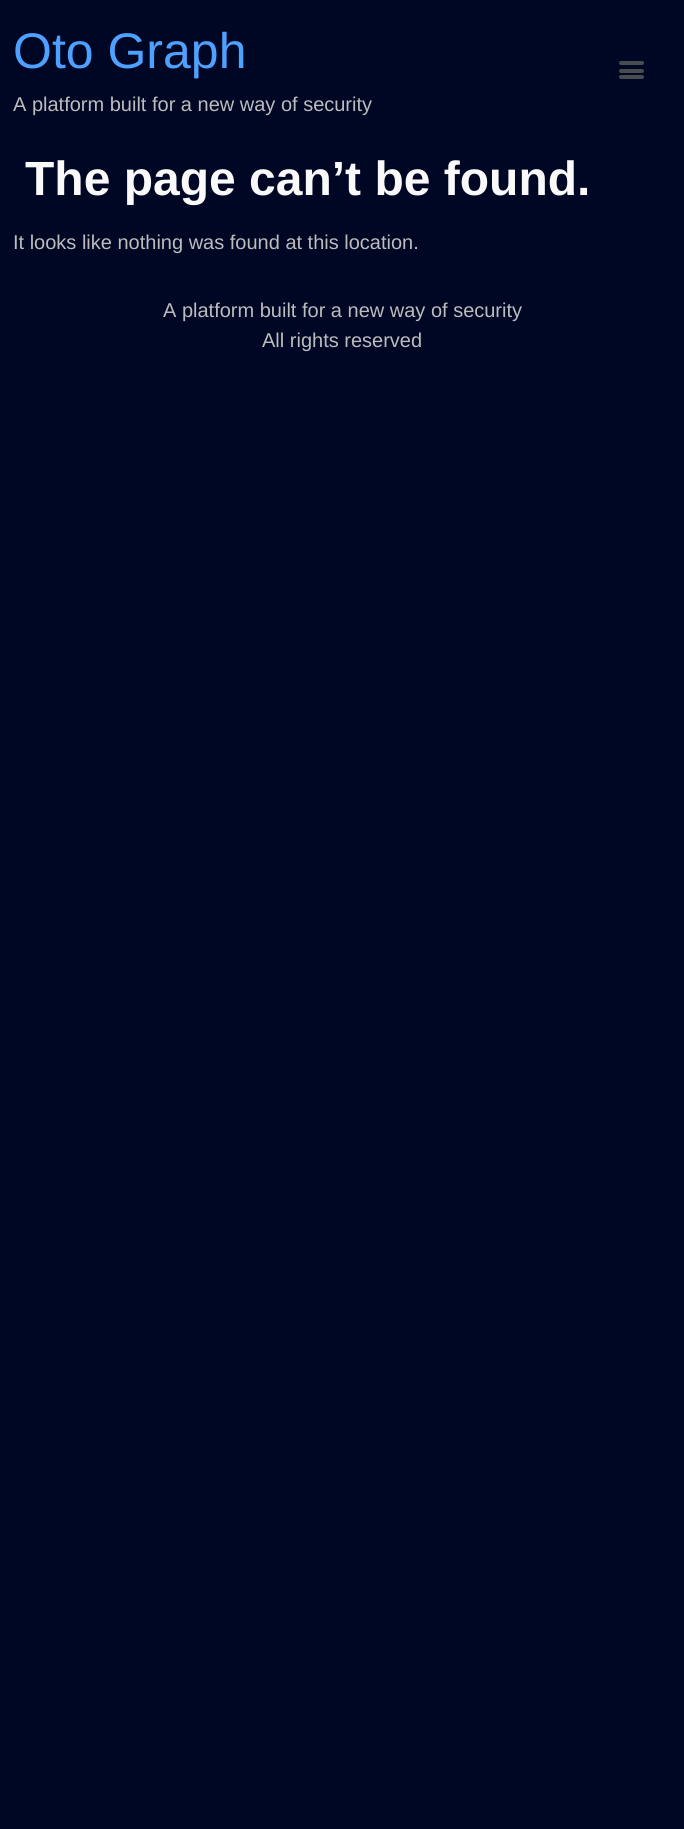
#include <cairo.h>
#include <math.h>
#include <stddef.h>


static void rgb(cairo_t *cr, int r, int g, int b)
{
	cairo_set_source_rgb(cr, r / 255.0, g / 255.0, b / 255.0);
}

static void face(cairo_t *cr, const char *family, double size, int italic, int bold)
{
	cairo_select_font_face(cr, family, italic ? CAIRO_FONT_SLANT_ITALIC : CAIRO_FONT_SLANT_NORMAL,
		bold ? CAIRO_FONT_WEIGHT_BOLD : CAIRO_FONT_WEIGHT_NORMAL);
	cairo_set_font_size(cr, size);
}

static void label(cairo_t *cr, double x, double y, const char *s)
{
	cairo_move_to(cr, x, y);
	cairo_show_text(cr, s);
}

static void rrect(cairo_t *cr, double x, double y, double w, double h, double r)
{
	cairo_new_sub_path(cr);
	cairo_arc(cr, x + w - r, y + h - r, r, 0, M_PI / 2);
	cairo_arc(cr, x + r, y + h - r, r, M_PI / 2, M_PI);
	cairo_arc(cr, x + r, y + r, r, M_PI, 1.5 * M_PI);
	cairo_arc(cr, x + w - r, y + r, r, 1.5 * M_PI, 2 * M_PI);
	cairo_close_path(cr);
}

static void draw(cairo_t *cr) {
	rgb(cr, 0, 7, 37);
	cairo_paint(cr);
	face(cr, "Liberation Sans", 50, 0, 0);
	rgb(cr, 78, 161, 255);
	label(cr, 13, 68, "Oto Graph");
	face(cr, "Liberation Sans", 20, 0, 0);
	rgb(cr, 188, 188, 188);
	label(cr, 13, 111, "A platform built for a new way of security");
	rgb(cr, 73, 76, 79);
	rrect(cr, 619, 69, 25, 4, 2);
	cairo_fill(cr);
	rrect(cr, 619, 61, 25, 4, 2);
	cairo_fill(cr);
	rrect(cr, 619, 75, 25, 4, 2);
	cairo_fill(cr);
	face(cr, "Liberation Sans", 48, 0, 1);
	rgb(cr, 249, 249, 249);
	label(cr, 25, 195, "The page can’t be found.");
	face(cr, "Liberation Sans", 20, 0, 0);
	rgb(cr, 188, 188, 188);
	label(cr, 13, 249, "It looks like nothing was found at this location.");
	label(cr, 163, 317, "A platform built for a new way of security");
	label(cr, 262, 347, "All rights reserved");
}

int main(void) {
	cairo_surface_t *surface = cairo_image_surface_create(CAIRO_FORMAT_RGB24, 684, 1829);
	cairo_t *cr = cairo_create(surface);
	cairo_font_options_t *options = cairo_font_options_create();
	cairo_font_options_set_hint_metrics(options, CAIRO_HINT_METRICS_OFF);
	cairo_font_options_set_hint_style(options, CAIRO_HINT_STYLE_NONE);
	cairo_set_font_options(cr, options);
	cairo_set_miter_limit(cr, 4);
	draw(cr);
	cairo_surface_write_to_png(surface, "render.png");
	cairo_font_options_destroy(options);
	cairo_destroy(cr);
	cairo_surface_destroy(surface);
	return 0;
}
